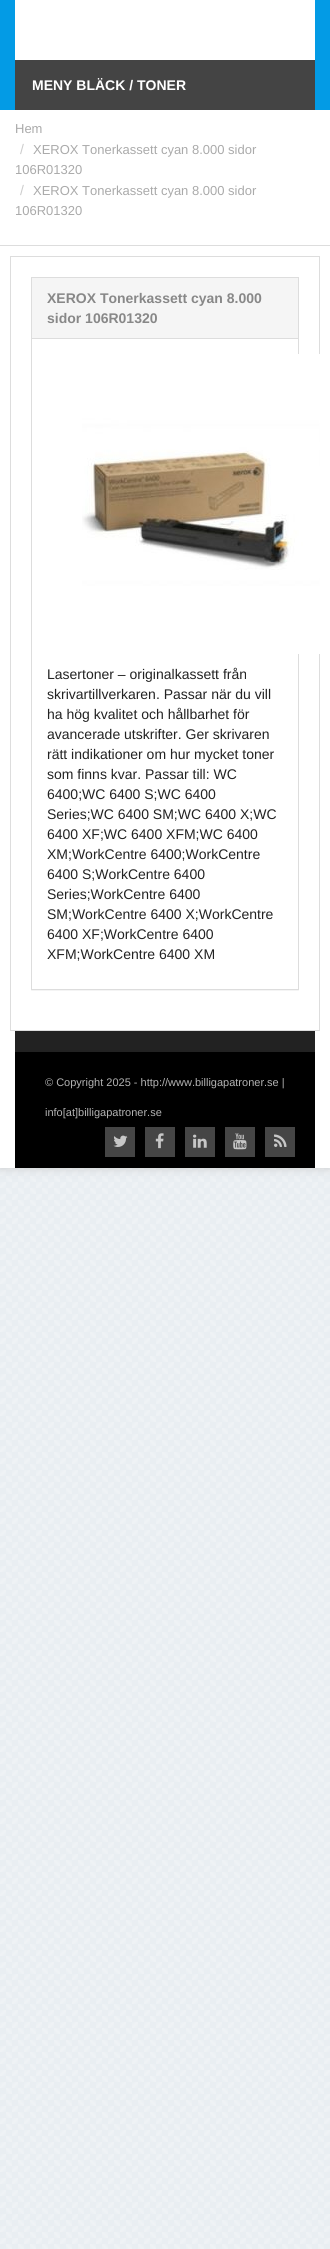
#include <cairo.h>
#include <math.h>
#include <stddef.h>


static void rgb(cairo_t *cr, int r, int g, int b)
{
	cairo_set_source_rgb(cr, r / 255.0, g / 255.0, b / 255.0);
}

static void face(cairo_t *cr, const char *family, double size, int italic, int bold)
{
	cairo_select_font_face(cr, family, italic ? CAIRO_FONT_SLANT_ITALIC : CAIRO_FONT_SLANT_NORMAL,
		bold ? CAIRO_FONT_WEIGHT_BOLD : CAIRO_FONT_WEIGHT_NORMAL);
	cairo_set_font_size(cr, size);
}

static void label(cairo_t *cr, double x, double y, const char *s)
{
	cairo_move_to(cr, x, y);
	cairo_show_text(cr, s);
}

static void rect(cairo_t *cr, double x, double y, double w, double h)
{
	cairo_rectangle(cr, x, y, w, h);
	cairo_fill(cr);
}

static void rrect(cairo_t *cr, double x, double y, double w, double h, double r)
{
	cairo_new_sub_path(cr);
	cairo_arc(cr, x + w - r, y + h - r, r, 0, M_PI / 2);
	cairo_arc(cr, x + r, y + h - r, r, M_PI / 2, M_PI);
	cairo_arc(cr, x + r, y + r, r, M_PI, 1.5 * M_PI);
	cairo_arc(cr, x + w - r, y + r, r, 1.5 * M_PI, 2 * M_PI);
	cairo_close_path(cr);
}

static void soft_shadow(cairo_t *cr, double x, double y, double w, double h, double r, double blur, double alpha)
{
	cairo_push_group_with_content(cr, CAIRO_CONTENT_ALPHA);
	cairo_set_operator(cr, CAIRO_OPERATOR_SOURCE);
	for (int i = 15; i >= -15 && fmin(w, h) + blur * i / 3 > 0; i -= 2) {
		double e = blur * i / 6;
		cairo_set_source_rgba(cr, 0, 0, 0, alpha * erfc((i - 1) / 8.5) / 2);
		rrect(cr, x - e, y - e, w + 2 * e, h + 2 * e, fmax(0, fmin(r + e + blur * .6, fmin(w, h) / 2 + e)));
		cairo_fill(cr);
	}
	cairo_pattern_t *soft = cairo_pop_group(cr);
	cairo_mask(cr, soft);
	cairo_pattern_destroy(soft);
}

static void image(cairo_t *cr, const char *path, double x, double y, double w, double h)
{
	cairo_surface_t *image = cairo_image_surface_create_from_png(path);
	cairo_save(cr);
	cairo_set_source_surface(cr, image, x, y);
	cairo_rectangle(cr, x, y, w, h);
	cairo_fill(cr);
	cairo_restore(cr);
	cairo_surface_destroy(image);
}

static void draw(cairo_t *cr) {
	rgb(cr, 233, 238, 242);
	cairo_paint(cr);
	image(cr, "image0.png", 0, 1168, 330, 1081);
	rgb(cr, 204, 204, 204);
	soft_shadow(cr, 0, 0, 330, 1168, 0, 5, 1);
	rgb(cr, 255, 255, 255);
	rect(cr, 0, 110, 330, 1058);
	rgb(cr, 3, 155, 229);
	rect(cr, 0, 0, 330, 110);
	rgb(cr, 255, 255, 255);
	rect(cr, 15, 0, 300, 60);
	rgb(cr, 68, 68, 68);
	rect(cr, 15, 60, 300, 50);
	face(cr, "Liberation Sans", 14, 0, 1);
	rgb(cr, 255, 255, 255);
	label(cr, 32, 90, "MENY BLÄCK / TONER");
	rgb(cr, 221, 221, 221);
	rect(cr, 0, 245, 330, 1);
	face(cr, "Liberation Sans", 13, 0, 0);
	rgb(cr, 170, 170, 170);
	label(cr, 15, 133, "Hem");
	face(cr, "Liberation Sans", 14, 0, 0);
	rgb(cr, 204, 204, 204);
	label(cr, 20, 154, "/");
	face(cr, "Liberation Sans", 13, 0, 0);
	rgb(cr, 170, 170, 170);
	label(cr, 33, 154, "XEROX Tonerkassett cyan 8.000 sidor");
	label(cr, 15, 174, "106R01320");
	face(cr, "Liberation Sans", 14, 0, 0);
	rgb(cr, 204, 204, 204);
	label(cr, 20, 195, "/");
	face(cr, "Liberation Sans", 13, 0, 0);
	rgb(cr, 170, 170, 170);
	label(cr, 33, 195, "XEROX Tonerkassett cyan 8.000 sidor");
	label(cr, 15, 215, "106R01320");
	cairo_rectangle(cr, 10.5, 256.5, 309, 774);
	rgb(cr, 221, 221, 221);
	cairo_set_line_width(cr, 1);
	cairo_stroke(cr);
	cairo_save(cr);
	cairo_rectangle(cr, 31, 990, 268, 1);
	cairo_clip(cr);
	rgb(cr, 0, 0, 0);
	soft_shadow(cr, 31, 278, 268, 713, 0, 0.5, 0.05);
	cairo_restore(cr);
	cairo_rectangle(cr, 31.5, 277.5, 267, 712);
	cairo_stroke(cr);
	rgb(cr, 245, 245, 245);
	rect(cr, 32, 278, 266, 60);
	rgb(cr, 221, 221, 221);
	rect(cr, 32, 338, 266, 1);
	face(cr, "Liberation Sans", 14, 0, 1);
	rgb(cr, 136, 136, 136);
	label(cr, 47, 303, "XEROX Tonerkassett cyan 8.000");
	label(cr, 47, 323, "sidor 106R01320");
	image(cr, "image1.png", 82, 354, 238, 300);
	face(cr, "Liberation Sans", 14, 0, 0);
	rgb(cr, 34, 34, 34);
	label(cr, 47, 679, "Lasertoner – originalkassett från");
	label(cr, 47, 699, "skrivartillverkaren. Passar när du vill");
	label(cr, 47, 719, "ha hög kvalitet och hållbarhet för");
	label(cr, 47, 739, "avancerade utskrifter. Ger skrivaren");
	label(cr, 47, 759, "rätt indikationer om hur mycket toner");
	label(cr, 47, 779, "som finns kvar. Passar till: WC");
	label(cr, 47, 799, "6400;WC 6400 S;WC 6400");
	label(cr, 47, 819, "Series;WC 6400 SM;WC 6400 X;WC");
	label(cr, 47, 839, "6400 XF;WC 6400 XFM;WC 6400");
	label(cr, 47, 859, "XM;WorkCentre 6400;WorkCentre");
	label(cr, 47, 879, "6400 S;WorkCentre 6400");
	label(cr, 47, 899, "Series;WorkCentre 6400");
	label(cr, 47, 919, "SM;WorkCentre 6400 X;WorkCentre");
	label(cr, 47, 939, "6400 XF;WorkCentre 6400");
	label(cr, 47, 959, "XFM;WorkCentre 6400 XM");
	rect(cr, 15, 1031, 300, 21);
	rgb(cr, 0, 0, 0);
	rect(cr, 15, 1052, 300, 116);
	face(cr, "Liberation Sans", 11, 0, 0);
	rgb(cr, 179, 179, 179);
	label(cr, 45, 1086, "© Copyright 2025 - http://www.billigapatroner.se |");
	label(cr, 45, 1116, "info[at]billigapatroner.se");
	rgb(cr, 69, 69, 69);
	rect(cr, 105, 1127, 30, 30);
	image(cr, "image2.png", 113, 1135, 15, 12);
	rect(cr, 145, 1127, 30, 30);
	image(cr, "image3.png", 155, 1133, 9, 16);
	rect(cr, 185, 1127, 30, 30);
	image(cr, "image4.png", 193, 1134, 14, 14);
	rect(cr, 225, 1127, 30, 30);
	image(cr, "image5.png", 233, 1133, 14, 17);
	rect(cr, 265, 1127, 30, 30);
	image(cr, "image6.png", 274, 1134, 13, 13);
}

int main(void) {
	cairo_surface_t *surface = cairo_image_surface_create(CAIRO_FORMAT_RGB24, 330, 2249);
	cairo_t *cr = cairo_create(surface);
	cairo_font_options_t *options = cairo_font_options_create();
	cairo_font_options_set_hint_metrics(options, CAIRO_HINT_METRICS_OFF);
	cairo_font_options_set_hint_style(options, CAIRO_HINT_STYLE_NONE);
	cairo_set_font_options(cr, options);
	cairo_set_miter_limit(cr, 4);
	draw(cr);
	cairo_surface_write_to_png(surface, "render.png");
	cairo_font_options_destroy(options);
	cairo_destroy(cr);
	cairo_surface_destroy(surface);
	return 0;
}
